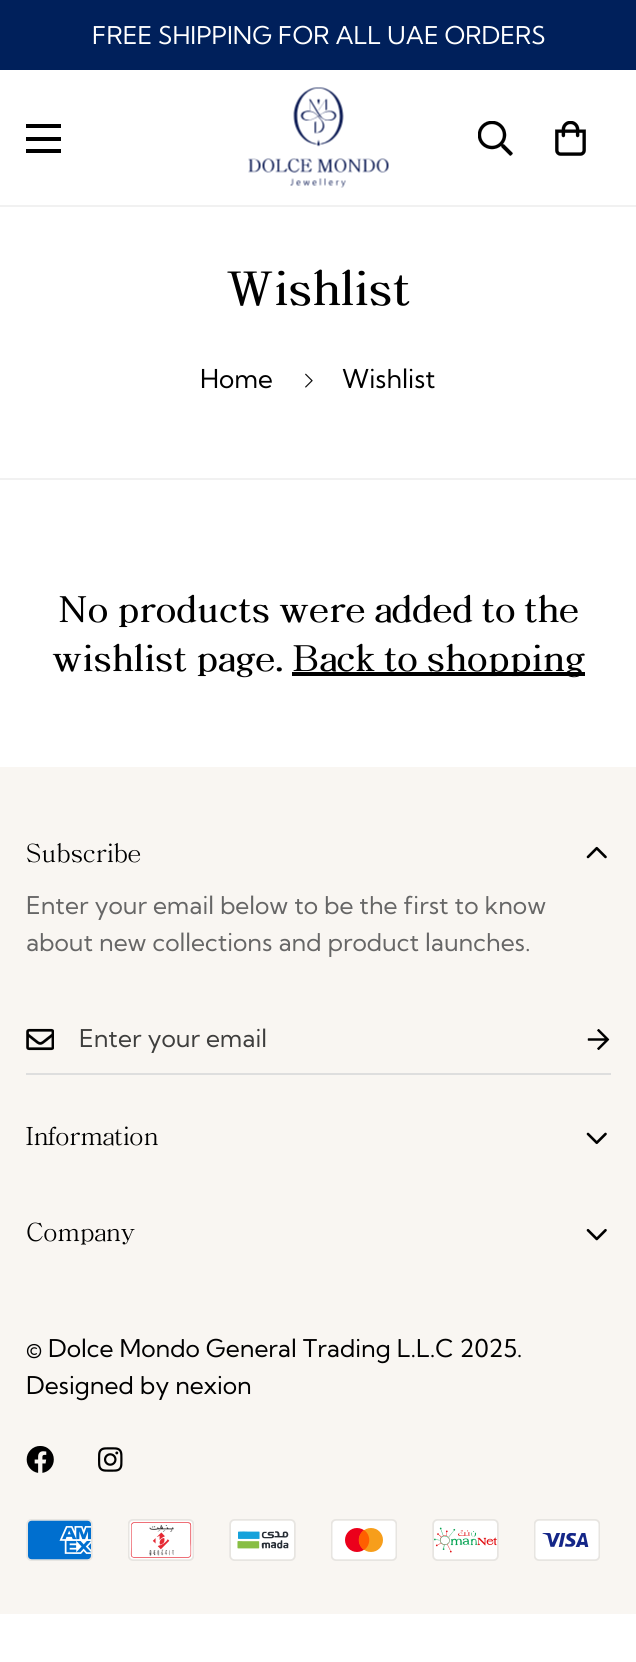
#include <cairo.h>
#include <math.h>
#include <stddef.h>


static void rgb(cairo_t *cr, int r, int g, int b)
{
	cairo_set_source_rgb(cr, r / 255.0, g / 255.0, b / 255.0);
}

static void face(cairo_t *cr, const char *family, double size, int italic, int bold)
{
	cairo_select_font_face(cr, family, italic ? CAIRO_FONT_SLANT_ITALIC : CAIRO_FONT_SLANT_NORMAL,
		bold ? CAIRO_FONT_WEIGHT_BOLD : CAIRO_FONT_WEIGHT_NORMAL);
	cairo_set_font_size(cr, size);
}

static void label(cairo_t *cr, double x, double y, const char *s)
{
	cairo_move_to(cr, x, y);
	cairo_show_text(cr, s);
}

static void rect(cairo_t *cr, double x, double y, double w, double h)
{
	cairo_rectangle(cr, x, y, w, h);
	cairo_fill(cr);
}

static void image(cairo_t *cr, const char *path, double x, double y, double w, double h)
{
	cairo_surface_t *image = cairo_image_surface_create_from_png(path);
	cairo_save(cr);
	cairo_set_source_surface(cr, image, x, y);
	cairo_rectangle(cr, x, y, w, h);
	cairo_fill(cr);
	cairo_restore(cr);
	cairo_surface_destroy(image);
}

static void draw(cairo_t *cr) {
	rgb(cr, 255, 255, 255);
	cairo_paint(cr);
	rgb(cr, 0, 32, 91);
	rect(cr, 0, 0, 636, 70);
	face(cr, "Kumbh Sans", 24.5, 0, 0);
	rgb(cr, 255, 255, 255);
	label(cr, 92, 44, "FREE SHIPPING FOR ALL UAE ORDERS");
	rgb(cr, 241, 241, 241);
	rect(cr, 0, 205, 636, 2);
	rgb(cr, 0, 0, 0);
	rect(cr, 26, 137, 35, 4);
	rect(cr, 26, 124, 35, 4);
	rect(cr, 26, 149, 35, 4);
	image(cr, "image0.png", 248, 87, 141, 101);
	image(cr, "image1.png", 478, 121, 35, 35);
	image(cr, "image2.png", 555, 121, 31, 35);
	rgb(cr, 241, 241, 241);
	rect(cr, 0, 478, 636, 2);
	face(cr, "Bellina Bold", 45.5, 0, 1);
	rgb(cr, 0, 0, 0);
	label(cr, 226, 305, "Wishlist");
	face(cr, "Kumbh Sans", 26, 0, 0);
	label(cr, 200, 388, "Home");
	image(cr, "image3.png", 305, 373, 8, 15);
	label(cr, 342, 388, "Wishlist");
	face(cr, "Bellina Bold", 35, 0, 1);
	label(cr, 58, 622, "No products were added to the");
	label(cr, 52, 671, "wishlist page.");
	rect(cr, 292, 672, 293, 4);
	label(cr, 292, 671, "Back to shopping");
	rgb(cr, 249, 246, 242);
	rect(cr, 0, 767, 636, 847);
	face(cr, "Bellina", 24.5, 0, 0);
	rgb(cr, 0, 0, 0);
	label(cr, 26, 862, "Subscribe");
	image(cr, "image4.png", 586, 846, 21, 13);
	face(cr, "Kumbh Sans", 24.5, 0, 0);
	rgb(cr, 102, 102, 102);
	label(cr, 26, 914, "Enter your email below to be the first to know");
	label(cr, 26, 951, "about new collections and product launches.");
	image(cr, "image5.png", 26, 1028, 28, 23);
	rgb(cr, 222, 222, 222);
	rect(cr, 26, 1073, 585, 2);
	rgb(cr, 62, 62, 61);
	label(cr, 79, 1047, "Enter your email");
	image(cr, "image6.png", 587, 1029, 23, 21);
	face(cr, "Bellina", 24.5, 0, 0);
	rgb(cr, 0, 0, 0);
	label(cr, 26, 1145, "Information");
	image(cr, "image7.png", 586, 1132, 21, 13);
	label(cr, 26, 1241, "Company");
	image(cr, "image8.png", 586, 1228, 21, 13);
	face(cr, "Kumbh Sans", 24.5, 0, 0);
	label(cr, 26, 1357, "© Dolce Mondo General Trading L.L.C 2025.");
	label(cr, 26, 1394, "Designed by nexion");
	image(cr, "image9.png", 26, 1446, 28, 27);
	image(cr, "image10.png", 98, 1447, 25, 25);
	image(cr, "image11.png", 26, 1519, 67, 42);
	image(cr, "image12.png", 128, 1519, 66, 42);
	image(cr, "image13.png", 229, 1519, 67, 42);
	image(cr, "image14.png", 331, 1519, 66, 42);
	image(cr, "image15.png", 432, 1519, 67, 42);
	image(cr, "image16.png", 534, 1519, 66, 42);
}

int main(void) {
	cairo_surface_t *surface = cairo_image_surface_create(CAIRO_FORMAT_RGB24, 636, 1662);
	cairo_t *cr = cairo_create(surface);
	cairo_font_options_t *options = cairo_font_options_create();
	cairo_font_options_set_hint_metrics(options, CAIRO_HINT_METRICS_OFF);
	cairo_font_options_set_hint_style(options, CAIRO_HINT_STYLE_NONE);
	cairo_set_font_options(cr, options);
	cairo_set_miter_limit(cr, 4);
	draw(cr);
	cairo_surface_write_to_png(surface, "render.png");
	cairo_font_options_destroy(options);
	cairo_destroy(cr);
	cairo_surface_destroy(surface);
	return 0;
}
